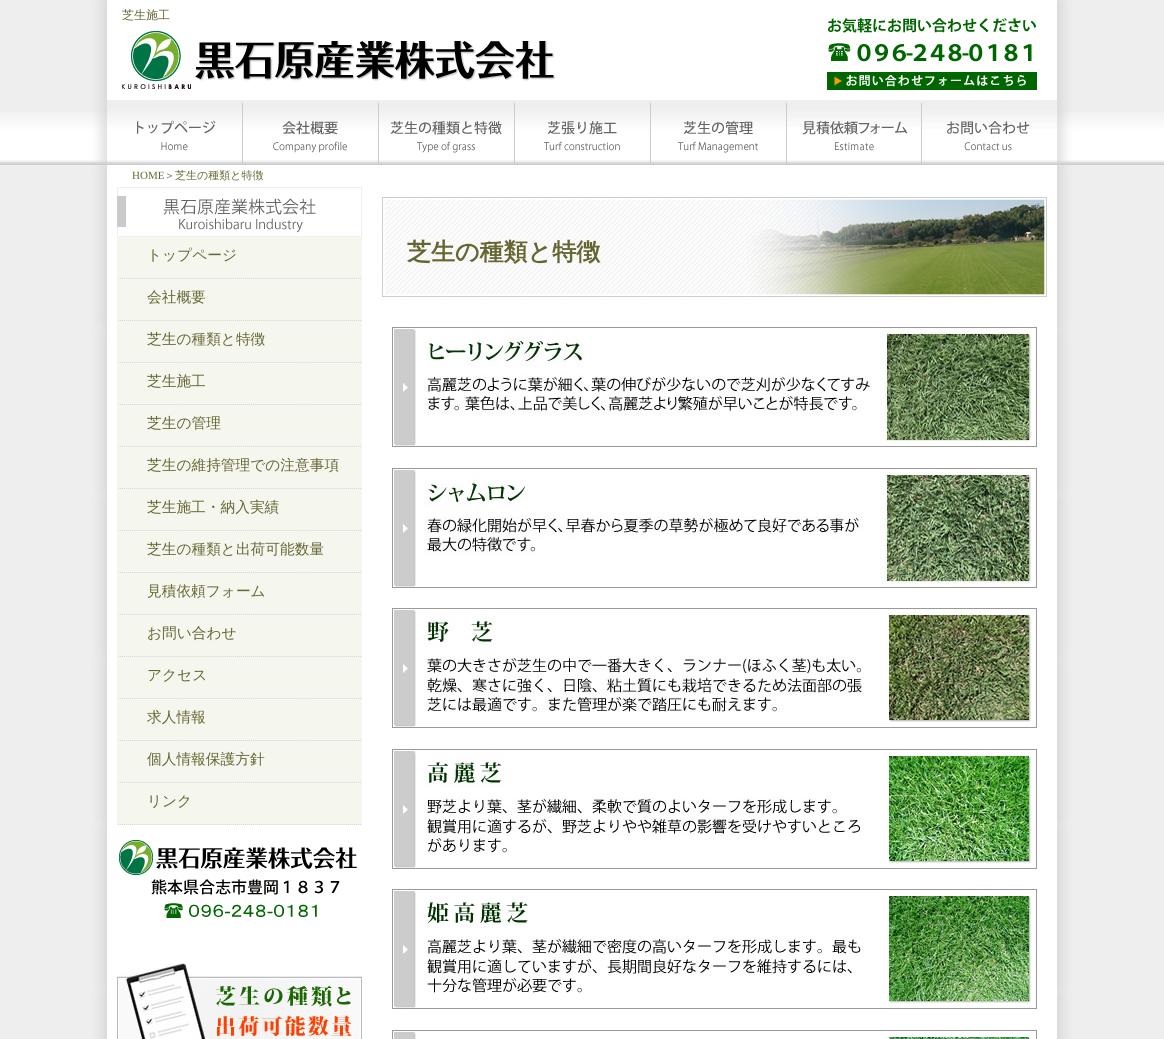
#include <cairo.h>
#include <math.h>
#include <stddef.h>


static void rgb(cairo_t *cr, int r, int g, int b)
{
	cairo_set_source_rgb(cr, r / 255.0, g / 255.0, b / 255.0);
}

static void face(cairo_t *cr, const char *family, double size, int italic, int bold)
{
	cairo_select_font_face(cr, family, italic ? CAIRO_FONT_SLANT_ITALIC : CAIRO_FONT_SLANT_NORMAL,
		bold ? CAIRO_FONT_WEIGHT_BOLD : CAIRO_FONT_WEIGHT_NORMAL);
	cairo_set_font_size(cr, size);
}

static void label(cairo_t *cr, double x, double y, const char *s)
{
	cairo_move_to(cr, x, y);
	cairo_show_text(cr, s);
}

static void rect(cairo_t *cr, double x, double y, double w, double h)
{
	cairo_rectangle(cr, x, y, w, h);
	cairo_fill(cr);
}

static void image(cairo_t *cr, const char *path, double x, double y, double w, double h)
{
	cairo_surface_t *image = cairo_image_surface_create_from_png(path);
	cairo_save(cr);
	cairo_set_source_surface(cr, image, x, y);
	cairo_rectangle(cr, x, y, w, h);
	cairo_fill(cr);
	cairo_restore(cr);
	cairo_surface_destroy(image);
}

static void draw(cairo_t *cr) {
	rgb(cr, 255, 255, 255);
	cairo_paint(cr);
	image(cr, "image0.png", 0, 0, 1164, 1039);
	image(cr, "image1.png", 0, 112, 1164, 53);
	face(cr, "WenQuanYi Zen Hei Medium", 12, 0, 0);
	rgb(cr, 102, 102, 51);
	label(cr, 122, 19, "芝生施工");
	image(cr, "image2.png", 122, 31, 434, 58);
	image(cr, "image3.png", 828, 18, 209, 44);
	image(cr, "image4.png", 827, 72, 210, 18);
	image(cr, "image5.png", 107, 100, 136, 65);
	image(cr, "image6.png", 243, 100, 136, 65);
	image(cr, "image7.png", 379, 100, 136, 65);
	image(cr, "image8.png", 515, 100, 136, 65);
	image(cr, "image9.png", 651, 100, 136, 65);
	image(cr, "image10.png", 787, 100, 135, 65);
	image(cr, "image11.png", 922, 100, 135, 65);
	face(cr, "Liberation Serif", 11, 0, 0);
	label(cr, 132, 179, "HOME");
	face(cr, "WenQuanYi Zen Hei Medium", 11, 0, 0);
	rgb(cr, 102, 102, 102);
	label(cr, 164, 179, "＞");
	rgb(cr, 102, 102, 51);
	label(cr, 175, 179, "芝生の種類と特徴");
	rgb(cr, 245, 246, 238);
	rect(cr, 117, 237, 245, 588);
	image(cr, "image12.png", 117, 187, 245, 50);
	face(cr, "WenQuanYi Zen Hei Medium", 14.7, 0, 0);
	rgb(cr, 102, 102, 51);
	label(cr, 147, 260, "トップページ");
	image(cr, "image13.png", 118, 278, 243, 1);
	label(cr, 147, 302, "会社概要");
	image(cr, "image13.png", 118, 320, 243, 1);
	label(cr, 147, 344, "芝生の種類と特徴");
	image(cr, "image13.png", 118, 362, 243, 1);
	label(cr, 147, 386, "芝生施工");
	image(cr, "image13.png", 118, 404, 243, 1);
	label(cr, 147, 428, "芝生の管理");
	image(cr, "image13.png", 118, 446, 243, 1);
	label(cr, 147, 470, "芝生の維持管理での注意事項");
	image(cr, "image13.png", 118, 488, 243, 1);
	label(cr, 147, 512, "芝生施工・納入実績");
	image(cr, "image13.png", 118, 530, 243, 1);
	label(cr, 147, 554, "芝生の種類と出荷可能数量");
	image(cr, "image13.png", 118, 572, 243, 1);
	label(cr, 147, 596, "見積依頼フォーム");
	image(cr, "image13.png", 118, 614, 243, 1);
	label(cr, 147, 638, "お問い合わせ");
	image(cr, "image13.png", 118, 656, 243, 1);
	label(cr, 147, 680, "アクセス");
	image(cr, "image13.png", 118, 698, 243, 1);
	label(cr, 147, 722, "求人情報");
	image(cr, "image13.png", 118, 740, 243, 1);
	label(cr, 147, 764, "個人情報保護方針");
	image(cr, "image13.png", 118, 782, 243, 1);
	label(cr, 147, 806, "リンク");
	image(cr, "image13.png", 118, 824, 243, 1);
	image(cr, "image14.png", 119, 840, 238, 78);
	image(cr, "image15.png", 117, 963, 245, 76);
	image(cr, "image16.png", 382, 197, 665, 100);
	face(cr, "WenQuanYi Zen Hei", 24, 0, 1);
	label(cr, 407, 260, "芝生の種類と特徴");
	image(cr, "image17.png", 392, 327, 645, 120);
	image(cr, "image18.png", 392, 468, 645, 120);
	image(cr, "image19.png", 392, 608, 645, 120);
	image(cr, "image20.png", 392, 749, 645, 120);
	image(cr, "image21.png", 392, 889, 645, 120);
	image(cr, "image22.png", 392, 1030, 645, 9);
}

int main(void) {
	cairo_surface_t *surface = cairo_image_surface_create(CAIRO_FORMAT_RGB24, 1164, 1039);
	cairo_t *cr = cairo_create(surface);
	cairo_font_options_t *options = cairo_font_options_create();
	cairo_font_options_set_hint_metrics(options, CAIRO_HINT_METRICS_OFF);
	cairo_font_options_set_hint_style(options, CAIRO_HINT_STYLE_NONE);
	cairo_set_font_options(cr, options);
	cairo_set_miter_limit(cr, 4);
	draw(cr);
	cairo_surface_write_to_png(surface, "render.png");
	cairo_font_options_destroy(options);
	cairo_destroy(cr);
	cairo_surface_destroy(surface);
	return 0;
}
